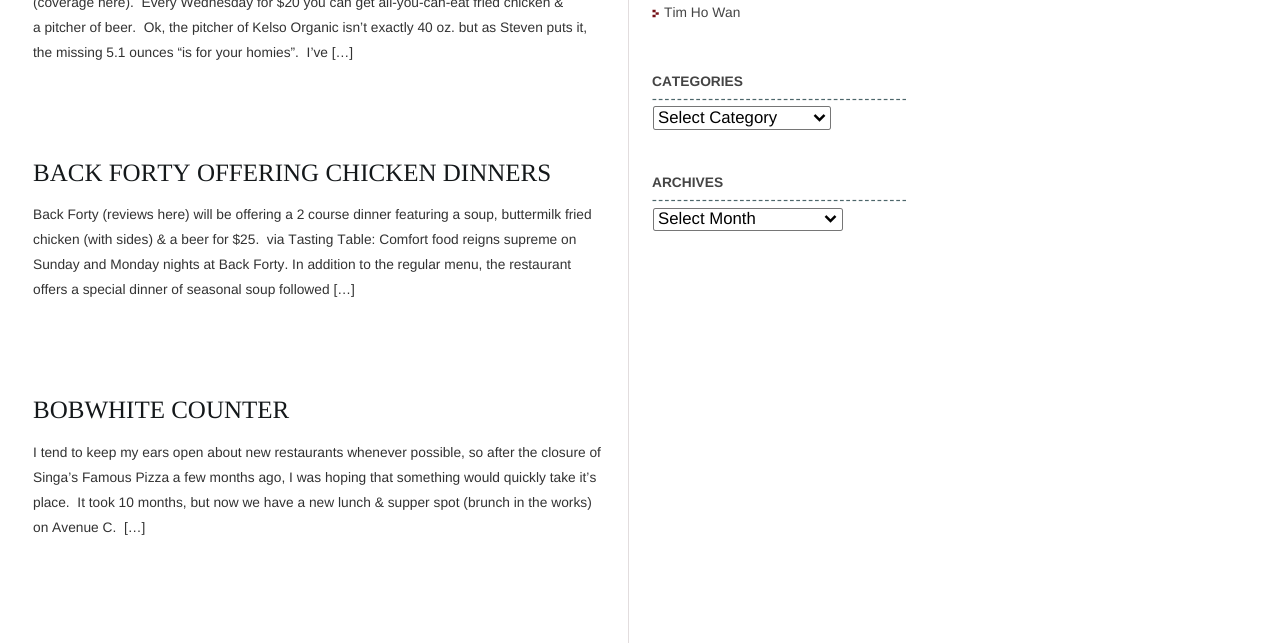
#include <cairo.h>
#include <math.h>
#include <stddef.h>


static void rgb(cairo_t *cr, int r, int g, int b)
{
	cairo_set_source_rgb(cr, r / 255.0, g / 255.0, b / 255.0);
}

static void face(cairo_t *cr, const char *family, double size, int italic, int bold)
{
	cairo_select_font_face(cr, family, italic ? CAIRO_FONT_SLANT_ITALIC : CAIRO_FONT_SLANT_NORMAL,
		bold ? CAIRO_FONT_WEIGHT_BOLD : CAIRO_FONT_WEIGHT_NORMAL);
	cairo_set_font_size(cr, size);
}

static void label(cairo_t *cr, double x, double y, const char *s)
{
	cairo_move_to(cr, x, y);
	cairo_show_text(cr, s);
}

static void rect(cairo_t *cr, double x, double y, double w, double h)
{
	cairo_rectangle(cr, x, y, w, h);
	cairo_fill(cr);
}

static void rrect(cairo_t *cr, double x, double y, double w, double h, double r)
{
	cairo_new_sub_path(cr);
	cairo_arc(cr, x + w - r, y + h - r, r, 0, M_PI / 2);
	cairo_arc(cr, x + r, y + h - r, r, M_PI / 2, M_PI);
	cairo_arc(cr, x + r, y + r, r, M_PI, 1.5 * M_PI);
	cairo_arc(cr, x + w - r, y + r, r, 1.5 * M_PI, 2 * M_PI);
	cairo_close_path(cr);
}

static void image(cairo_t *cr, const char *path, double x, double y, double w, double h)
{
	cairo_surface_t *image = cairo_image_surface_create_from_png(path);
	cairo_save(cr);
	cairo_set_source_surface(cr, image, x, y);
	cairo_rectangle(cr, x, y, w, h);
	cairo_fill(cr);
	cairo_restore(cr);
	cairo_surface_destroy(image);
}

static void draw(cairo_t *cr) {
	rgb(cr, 255, 255, 255);
	cairo_paint(cr);
	face(cr, "Liberation Sans", 13.75, 0, 0);
	rgb(cr, 50, 50, 50);
	label(cr, 33, 7, "(coverage here).  Every Wednesday for $20 you can get all-you-can-eat fried chicken &");
	label(cr, 33, 32, "a pitcher of beer.  Ok, the pitcher of Kelso Organic isn’t exactly 40 oz. but as Steven puts it,");
	label(cr, 33, 57, "the missing 5.1 ounces “is for your homies”.  I’ve […]");
	face(cr, "Liberation Serif", 25, 0, 0);
	rgb(cr, 20, 24, 26);
	label(cr, 33, 181, "BACK FORTY OFFERING CHICKEN DINNERS");
	face(cr, "Liberation Sans", 13.75, 0, 0);
	rgb(cr, 50, 50, 50);
	label(cr, 33, 219, "Back Forty (reviews here) will be offering a 2 course dinner featuring a soup, buttermilk fried");
	label(cr, 33, 244, "chicken (with sides) & a beer for $25.  via Tasting Table: Comfort food reigns supreme on");
	label(cr, 33, 269, "Sunday and Monday nights at Back Forty. In addition to the regular menu, the restaurant");
	label(cr, 33, 294, "offers a special dinner of seasonal soup followed […]");
	face(cr, "Liberation Serif", 25, 0, 0);
	rgb(cr, 20, 24, 26);
	label(cr, 33, 418, "BOBWHITE COUNTER");
	face(cr, "Liberation Sans", 13.75, 0, 0);
	rgb(cr, 50, 50, 50);
	label(cr, 33, 457, "I tend to keep my ears open about new restaurants whenever possible, so after the closure of");
	label(cr, 33, 482, "Singa’s Famous Pizza a few months ago, I was hoping that something would quickly take it’s");
	label(cr, 33, 507, "place.  It took 10 months, but now we have a new lunch & supper spot (brunch in the works)");
	label(cr, 33, 532, "on Avenue C.  […]");
	rgb(cr, 226, 221, 222);
	rect(cr, 628, 0, 1, 643);
	image(cr, "image0.png", 652, 9, 7, 9);
	rgb(cr, 68, 68, 68);
	label(cr, 664, 17, "Tim Ho Wan");
	cairo_new_path(cr);
	cairo_move_to(cr, 652.5, 99.5);
	cairo_line_to(cr, 906, 99.5);
	rgb(cr, 76, 102, 106);
	cairo_set_line_width(cr, 1.2);
	cairo_set_dash(cr, (double[]){3.75, 2.5}, 2, 0);
	cairo_stroke(cr);
	face(cr, "Liberation Sans", 13.75, 0, 1);
	rgb(cr, 68, 68, 68);
	label(cr, 652, 86, "CATEGORIES");
	rrect(cr, 653.5, 106.5, 177, 23, 2);
	rgb(cr, 118, 118, 118);
	cairo_set_line_width(cr, 1);
	cairo_set_dash(cr, NULL, 0, 0);
	cairo_stroke(cr);
	cairo_new_path(cr);
	cairo_move_to(cr, 814.5, 115);
	cairo_line_to(cr, 819.5, 120);
	cairo_line_to(cr, 824.5, 115);
	rgb(cr, 0, 0, 0);
	cairo_set_line_width(cr, 2.5);
	cairo_stroke(cr);
	face(cr, "Liberation Sans", 16.75, 0, 0);
	label(cr, 658, 123, "Select Category");
	cairo_new_path(cr);
	cairo_move_to(cr, 652.5, 200.5);
	cairo_line_to(cr, 906, 200.5);
	rgb(cr, 76, 102, 106);
	cairo_set_line_width(cr, 1.2);
	cairo_set_dash(cr, (double[]){3.75, 2.5}, 2, 0);
	cairo_stroke(cr);
	face(cr, "Liberation Sans", 13.75, 0, 1);
	rgb(cr, 68, 68, 68);
	label(cr, 652, 187, "ARCHIVES");
	rrect(cr, 653.5, 208.5, 189, 22, 2);
	rgb(cr, 118, 118, 118);
	cairo_set_line_width(cr, 1);
	cairo_set_dash(cr, NULL, 0, 0);
	cairo_stroke(cr);
	cairo_new_path(cr);
	cairo_move_to(cr, 825.5, 216);
	cairo_line_to(cr, 830.5, 221);
	cairo_line_to(cr, 835.5, 216);
	rgb(cr, 0, 0, 0);
	cairo_set_line_width(cr, 2.5);
	cairo_stroke(cr);
	face(cr, "Liberation Sans", 16.75, 0, 0);
	label(cr, 658, 224, "Select Month");
}

int main(void) {
	cairo_surface_t *surface = cairo_image_surface_create(CAIRO_FORMAT_RGB24, 1266, 643);
	cairo_t *cr = cairo_create(surface);
	cairo_font_options_t *options = cairo_font_options_create();
	cairo_font_options_set_hint_metrics(options, CAIRO_HINT_METRICS_OFF);
	cairo_font_options_set_hint_style(options, CAIRO_HINT_STYLE_NONE);
	cairo_set_font_options(cr, options);
	cairo_set_miter_limit(cr, 4);
	draw(cr);
	cairo_surface_write_to_png(surface, "render.png");
	cairo_font_options_destroy(options);
	cairo_destroy(cr);
	cairo_surface_destroy(surface);
	return 0;
}
